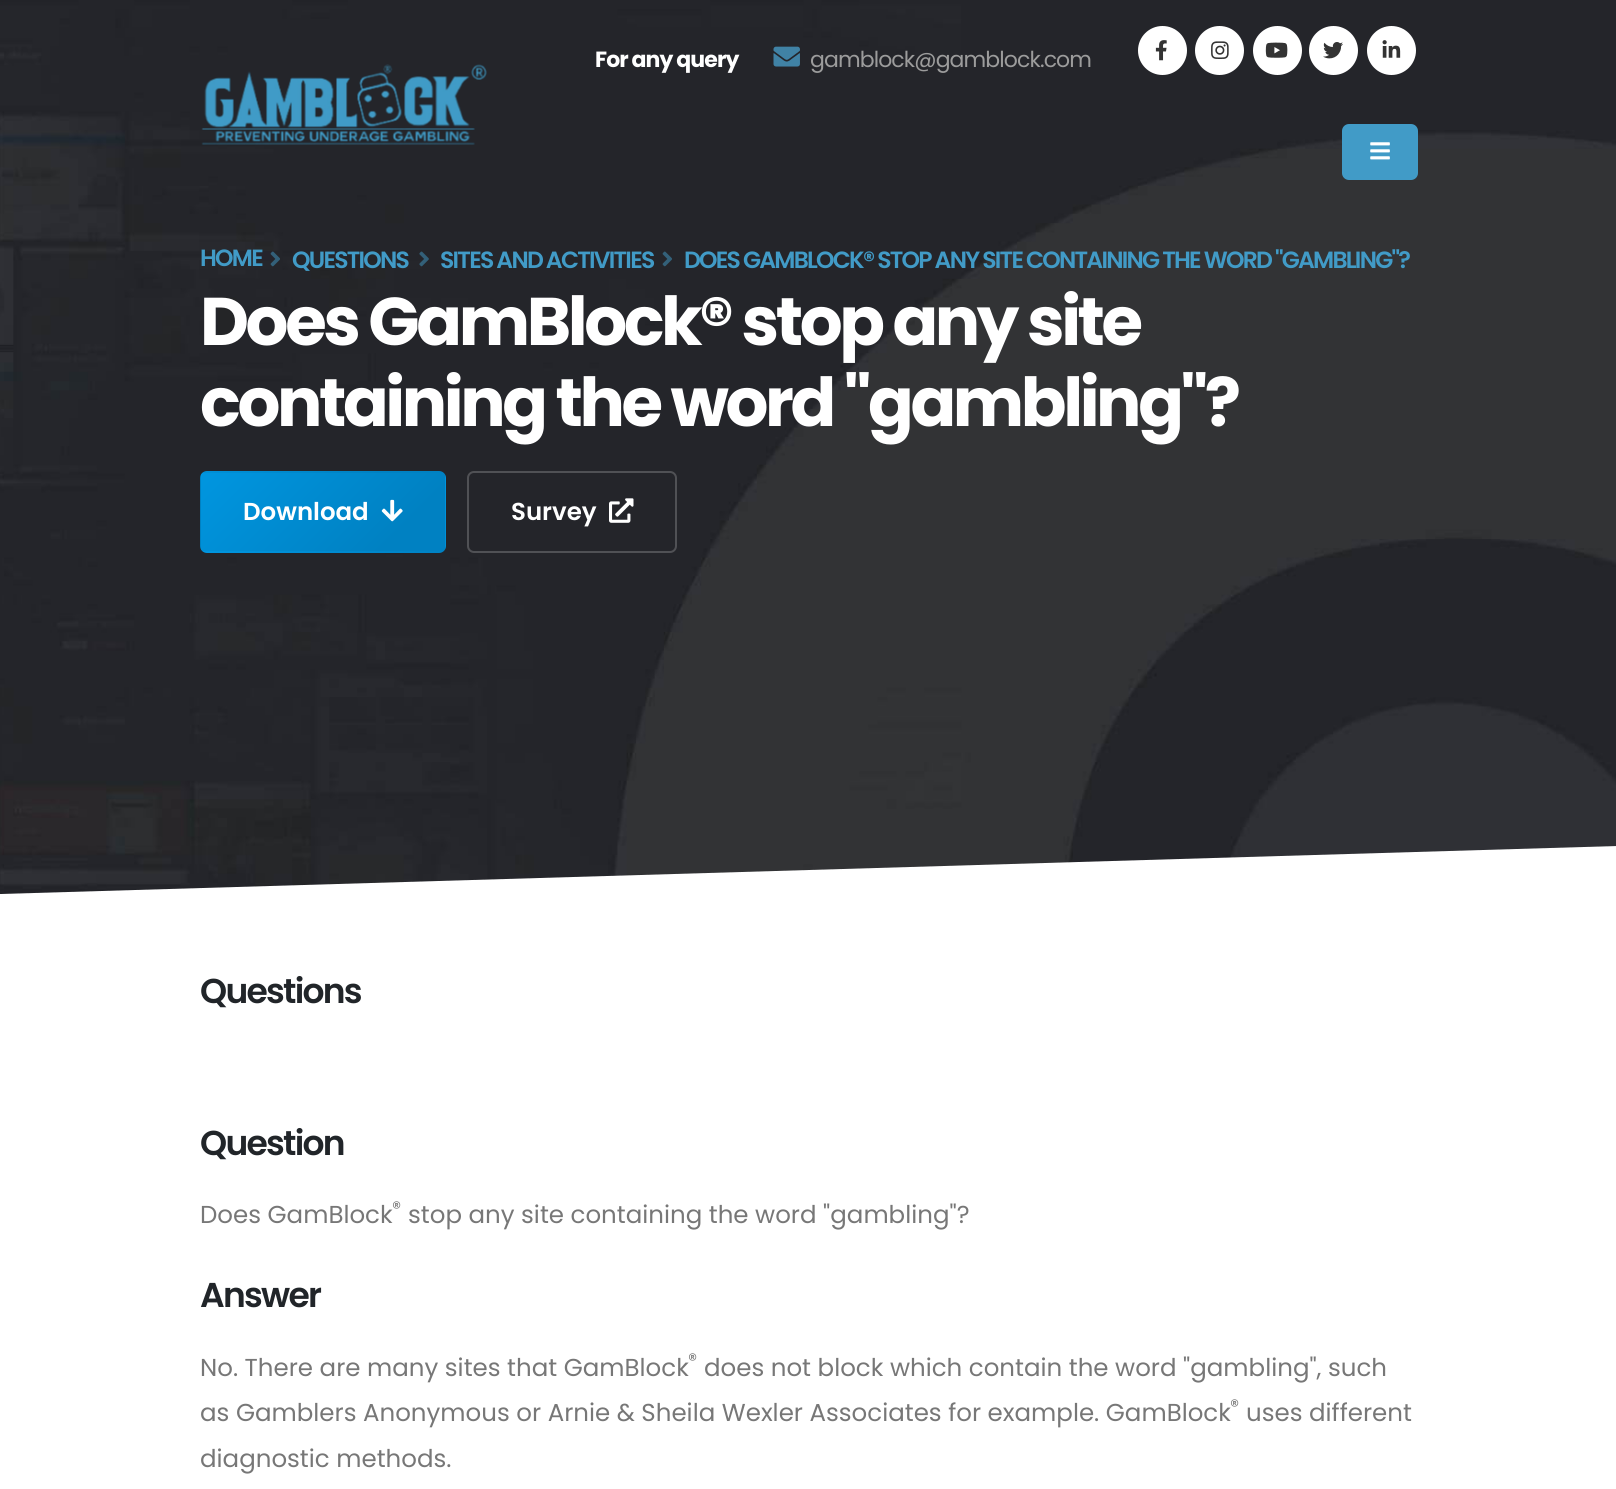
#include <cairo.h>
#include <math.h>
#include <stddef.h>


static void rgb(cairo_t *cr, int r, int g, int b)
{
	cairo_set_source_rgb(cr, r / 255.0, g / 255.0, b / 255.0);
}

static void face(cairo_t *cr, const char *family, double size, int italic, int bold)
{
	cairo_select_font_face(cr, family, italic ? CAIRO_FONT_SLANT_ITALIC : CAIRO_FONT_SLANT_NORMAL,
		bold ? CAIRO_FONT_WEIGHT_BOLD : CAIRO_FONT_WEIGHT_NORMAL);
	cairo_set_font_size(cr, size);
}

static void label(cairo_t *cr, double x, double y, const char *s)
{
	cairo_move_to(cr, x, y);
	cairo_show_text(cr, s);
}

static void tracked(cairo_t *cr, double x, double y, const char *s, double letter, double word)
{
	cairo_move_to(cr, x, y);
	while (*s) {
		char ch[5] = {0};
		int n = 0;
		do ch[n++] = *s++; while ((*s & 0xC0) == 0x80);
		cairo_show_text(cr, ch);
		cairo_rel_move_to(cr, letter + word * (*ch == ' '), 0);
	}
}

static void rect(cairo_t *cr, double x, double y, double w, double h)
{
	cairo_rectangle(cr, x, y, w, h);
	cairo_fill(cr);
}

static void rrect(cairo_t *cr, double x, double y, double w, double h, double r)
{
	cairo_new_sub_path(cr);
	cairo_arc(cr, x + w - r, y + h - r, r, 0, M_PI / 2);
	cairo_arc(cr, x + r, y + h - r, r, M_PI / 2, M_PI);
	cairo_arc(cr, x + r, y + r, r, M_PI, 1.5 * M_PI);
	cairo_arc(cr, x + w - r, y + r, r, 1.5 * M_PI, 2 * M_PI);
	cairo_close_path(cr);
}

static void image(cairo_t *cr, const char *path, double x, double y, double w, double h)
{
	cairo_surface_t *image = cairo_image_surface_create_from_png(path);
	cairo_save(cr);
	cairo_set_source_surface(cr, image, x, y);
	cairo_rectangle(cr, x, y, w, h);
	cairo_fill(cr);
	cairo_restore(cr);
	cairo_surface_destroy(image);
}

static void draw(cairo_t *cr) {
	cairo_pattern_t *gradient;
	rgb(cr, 255, 255, 255);
	cairo_paint(cr);
	image(cr, "image8.png", 0, 0, 1616, 894);
	face(cr, "Poppins", 22, 0, 1);
	rgb(cr, 255, 255, 255);
	tracked(cr, 595, 67, "For any query", -0.9, 0);
	image(cr, "image0.png", 773, 46, 27, 21);
	face(cr, "Poppins", 22, 0, 0);
	rgb(cr, 156, 156, 156);
	tracked(cr, 810, 67, "gamblock@gamblock.com", -0.9, 0);
	rgb(cr, 255, 255, 255);
	cairo_new_path(cr);
	cairo_arc(cr, 1162.5, 50.5, 24.5, 0, 2 * M_PI);
	cairo_fill(cr);
	image(cr, "image1.png", 1155, 40, 12, 21);
	cairo_arc(cr, 1219.5, 50.5, 24.5, 0, 2 * M_PI);
	cairo_fill(cr);
	image(cr, "image2.png", 1211, 41, 18, 18);
	cairo_arc(cr, 1277.5, 50.5, 24.5, 0, 2 * M_PI);
	cairo_fill(cr);
	image(cr, "image3.png", 1265, 42, 23, 16);
	cairo_arc(cr, 1333.5, 50.5, 24.5, 0, 2 * M_PI);
	cairo_fill(cr);
	image(cr, "image4.png", 1323, 42, 20, 17);
	cairo_arc(cr, 1391.5, 50.5, 24.5, 0, 2 * M_PI);
	cairo_fill(cr);
	image(cr, "image5.png", 1382, 40, 19, 18);
	rgb(cr, 65, 155, 199);
	rrect(cr, 1342, 124, 76, 56, 7);
	cairo_fill(cr);
	image(cr, "image6.png", 1370, 142, 20, 18);
	image(cr, "image7.png", 201, 64, 286, 81);
	face(cr, "Poppins SemiBold", 23.5, 0, 0);
	tracked(cr, 200, 266, "HOME", -1.75, 0);
	image(cr, "image9.png", 270, 251, 10, 16);
	tracked(cr, 292, 268, "QUESTIONS", -1.75, 0);
	image(cr, "image10.png", 419, 251, 10, 16);
	tracked(cr, 440, 268, "SITES AND ACTIVITIES", -1.75, 0);
	image(cr, "image11.png", 662, 251, 10, 16);
	tracked(cr, 684, 268, "DOES GAMBLOCK® STOP ANY SITE CONTAINING THE WORD \"GAMBLING\"?", -1.75, 0);
	face(cr, "Poppins", 67.4, 0, 1);
	rgb(cr, 255, 255, 255);
	tracked(cr, 200, 345, "Does GamBlock® stop any site", -3.4, 0);
	tracked(cr, 200, 426, "containing the word \"gambling\"?", -3.4, 0);
	cairo_save(cr);
	rrect(cr, 200, 471, 246, 82, 7);
	cairo_clip(cr);
	gradient = cairo_pattern_create_linear(242, 353, 403, 514);
	cairo_pattern_add_color_stop_rgba(gradient, 0, 0, 0.588, 0.878, 1);
	cairo_pattern_add_color_stop_rgba(gradient, 0.8, 0, 0.506, 0.761, 1);
	cairo_set_source(cr, gradient);
	cairo_pattern_destroy(gradient);
	rect(cr, 201, 471, 244, 2);
	gradient = cairo_pattern_create_linear(-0.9, 431, 160, 592);
	cairo_pattern_add_color_stop_rgba(gradient, 0, 0, 0.588, 0.878, 1);
	cairo_pattern_add_color_stop_rgba(gradient, 0.8, 0, 0.506, 0.761, 1);
	cairo_set_source(cr, gradient);
	cairo_pattern_destroy(gradient);
	rect(cr, 200, 473, 1, 78);
	gradient = cairo_pattern_create_linear(242, 431, 403, 592);
	cairo_pattern_add_color_stop_rgba(gradient, 0, 0, 0.588, 0.878, 1);
	cairo_pattern_add_color_stop_rgba(gradient, 0.8, 0, 0.506, 0.761, 1);
	cairo_set_source(cr, gradient);
	cairo_pattern_destroy(gradient);
	rect(cr, 201, 473, 244, 78);
	gradient = cairo_pattern_create_linear(486, 431, 647, 592);
	cairo_pattern_add_color_stop_rgba(gradient, 0, 0, 0.588, 0.878, 1);
	cairo_pattern_add_color_stop_rgba(gradient, 0.8, 0, 0.506, 0.761, 1);
	cairo_set_source(cr, gradient);
	cairo_pattern_destroy(gradient);
	rect(cr, 445, 473, 1, 78);
	gradient = cairo_pattern_create_linear(242, 510, 403, 671);
	cairo_pattern_add_color_stop_rgba(gradient, 0, 0, 0.588, 0.878, 1);
	cairo_pattern_add_color_stop_rgba(gradient, 0.8, 0, 0.506, 0.761, 1);
	cairo_set_source(cr, gradient);
	cairo_pattern_destroy(gradient);
	rect(cr, 201, 551, 244, 2);
	cairo_restore(cr);
	face(cr, "Poppins SemiBold", 24.5, 0, 0);
	label(cr, 243, 520, "Download");
	image(cr, "image12.png", 381, 499, 22, 23);
	rrect(cr, 468, 472, 208, 80, 6);
	rgb(cr, 80, 81, 85);
	cairo_stroke(cr);
	rgb(cr, 255, 255, 255);
	label(cr, 511, 520, "Survey");
	image(cr, "image13.png", 609, 498, 25, 25);
	cairo_save(cr);
	cairo_rectangle(cr, 0, 0, 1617, 954);
	cairo_clip(cr);
	cairo_new_path(cr);
	cairo_move_to(cr, 0, 894);
	cairo_line_to(cr, 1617, 846);
	cairo_line_to(cr, 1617, 1014);
	cairo_line_to(cr, 0, 1062);
	cairo_close_path(cr);
	cairo_fill(cr);
	cairo_restore(cr);
	face(cr, "Poppins SemiBold", 34.5, 0, 0);
	rgb(cr, 33, 37, 41);
	tracked(cr, 200, 1003, "Questions", -1.75, 0);
	tracked(cr, 200, 1155, "Question", -1.75, 0);
	face(cr, "Poppins", 24.5, 0, 0);
	rgb(cr, 119, 119, 119);
	label(cr, 200, 1223, "Does GamBlock");
	face(cr, "Poppins", 18, 0, 0);
	label(cr, 392, 1214, "®");
	face(cr, "Poppins", 24.5, 0, 0);
	label(cr, 408, 1223, "stop any site containing the word \"gambling\"?");
	face(cr, "Poppins SemiBold", 34.5, 0, 0);
	rgb(cr, 33, 37, 41);
	tracked(cr, 200, 1307, "Answer", -1.75, 0);
	face(cr, "Poppins", 24.5, 0, 0);
	rgb(cr, 119, 119, 119);
	label(cr, 200, 1376, "No. There are many sites that GamBlock");
	face(cr, "Poppins", 18, 0, 0);
	label(cr, 688, 1366, "®");
	face(cr, "Poppins", 24.5, 0, 0);
	label(cr, 704, 1376, "does not block which contain the word \"gambling\", such");
	label(cr, 200, 1421, "as Gamblers Anonymous or Arnie & Sheila Wexler Associates for example. GamBlock");
	face(cr, "Poppins", 18, 0, 0);
	label(cr, 1230, 1412, "®");
	face(cr, "Poppins", 24.5, 0, 0);
	label(cr, 1246, 1421, "uses different");
	label(cr, 200, 1467, "diagnostic methods.");
}

int main(void) {
	cairo_surface_t *surface = cairo_image_surface_create(CAIRO_FORMAT_RGB24, 1616, 1489);
	cairo_t *cr = cairo_create(surface);
	cairo_font_options_t *options = cairo_font_options_create();
	cairo_font_options_set_hint_metrics(options, CAIRO_HINT_METRICS_OFF);
	cairo_font_options_set_hint_style(options, CAIRO_HINT_STYLE_NONE);
	cairo_set_font_options(cr, options);
	cairo_set_miter_limit(cr, 4);
	draw(cr);
	cairo_surface_write_to_png(surface, "render.png");
	cairo_font_options_destroy(options);
	cairo_destroy(cr);
	cairo_surface_destroy(surface);
	return 0;
}
